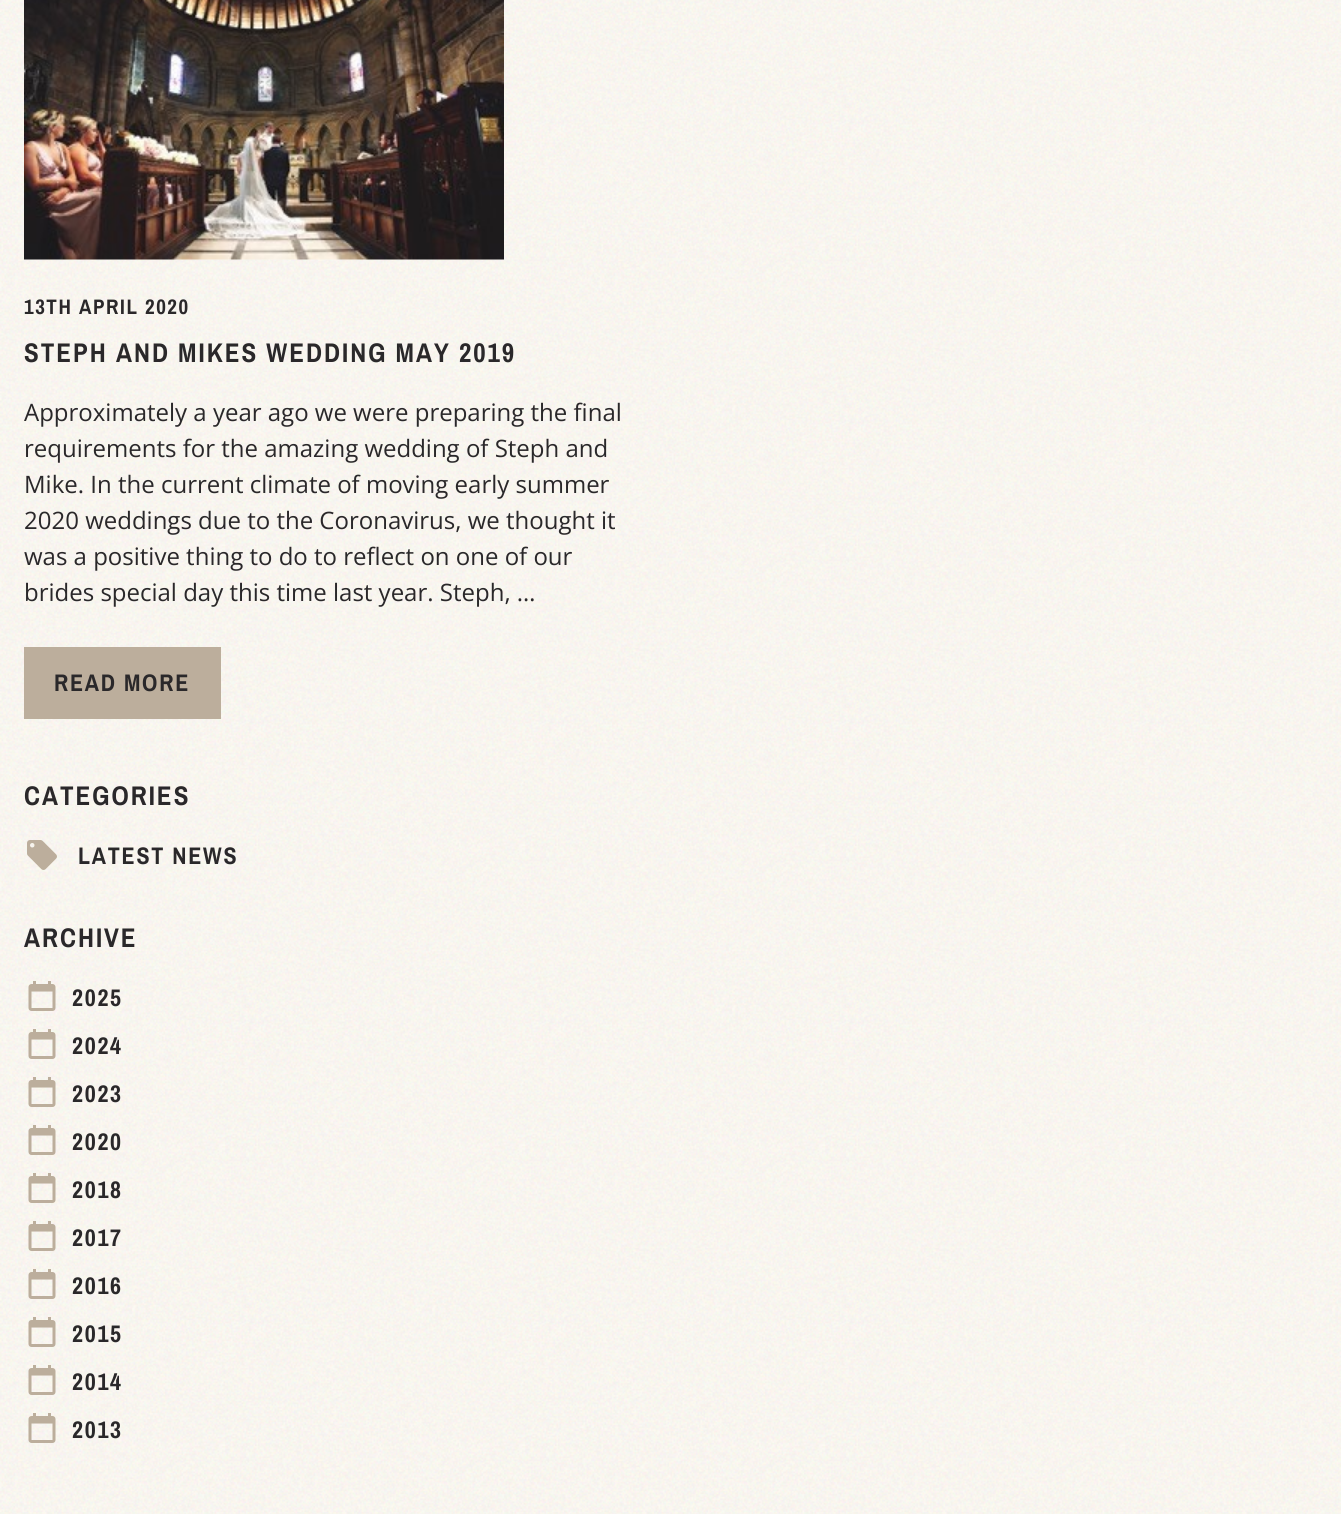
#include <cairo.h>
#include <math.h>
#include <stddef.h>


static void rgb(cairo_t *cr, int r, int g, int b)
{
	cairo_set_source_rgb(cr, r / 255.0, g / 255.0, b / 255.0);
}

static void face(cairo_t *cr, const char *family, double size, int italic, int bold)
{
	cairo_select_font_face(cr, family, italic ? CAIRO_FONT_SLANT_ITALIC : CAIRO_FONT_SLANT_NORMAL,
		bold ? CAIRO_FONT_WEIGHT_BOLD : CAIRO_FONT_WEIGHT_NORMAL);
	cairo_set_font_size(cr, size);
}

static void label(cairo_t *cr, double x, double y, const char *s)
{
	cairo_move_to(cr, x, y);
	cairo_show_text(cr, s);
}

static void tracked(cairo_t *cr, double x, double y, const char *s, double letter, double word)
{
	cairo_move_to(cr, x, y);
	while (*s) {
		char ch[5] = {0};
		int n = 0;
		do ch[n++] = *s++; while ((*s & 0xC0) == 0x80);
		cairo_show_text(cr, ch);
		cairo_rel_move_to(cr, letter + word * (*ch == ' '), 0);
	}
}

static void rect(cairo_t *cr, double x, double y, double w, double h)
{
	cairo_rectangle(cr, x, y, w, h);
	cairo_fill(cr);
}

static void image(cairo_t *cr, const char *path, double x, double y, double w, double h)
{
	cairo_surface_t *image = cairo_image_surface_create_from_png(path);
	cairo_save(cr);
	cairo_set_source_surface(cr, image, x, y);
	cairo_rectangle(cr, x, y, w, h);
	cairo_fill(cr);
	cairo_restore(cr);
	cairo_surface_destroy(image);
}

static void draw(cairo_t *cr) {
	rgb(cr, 255, 255, 255);
	cairo_paint(cr);
	image(cr, "image0.png", 0, 0, 1341, 1514);
	image(cr, "image1.png", 24, 0, 480, 260);
	face(cr, "Archivo Narrow", 21, 0, 1);
	rgb(cr, 42, 40, 42);
	tracked(cr, 24, 314, "13TH APRIL 2020", 1.6, 0);
	face(cr, "Archivo Narrow", 27, 0, 1);
	tracked(cr, 24, 362, "STEPH AND MIKES WEDDING MAY 2019", 2, 0);
	face(cr, "Open Sans", 24, 0, 0);
	label(cr, 24, 421, "Approximately a year ago we were preparing the final");
	label(cr, 24, 457, "requirements for the amazing wedding of Steph and");
	label(cr, 24, 493, "Mike. In the current climate of moving early summer");
	label(cr, 24, 529, "2020 weddings due to the Coronavirus, we thought it");
	label(cr, 24, 565, "was a positive thing to do to reflect on one of our");
	label(cr, 24, 601, "brides special day this time last year. Steph, …");
	rgb(cr, 188, 174, 156);
	rect(cr, 24, 647, 197, 72);
	face(cr, "Archivo Narrow", 24, 0, 1);
	rgb(cr, 42, 40, 42);
	tracked(cr, 54, 691, "READ MORE", 1.75, 0);
	face(cr, "Archivo Narrow", 27, 0, 1);
	tracked(cr, 24, 805, "CATEGORIES", 2, 0);
	image(cr, "image2.png", 27, 840, 30, 30);
	face(cr, "Archivo Narrow", 24, 0, 1);
	tracked(cr, 78, 864, "LATEST NEWS", 1.75, 0);
	face(cr, "Archivo Narrow", 27, 0, 1);
	tracked(cr, 24, 947, "ARCHIVE", 2, 0);
	image(cr, "image3.png", 28, 981, 28, 30);
	face(cr, "Archivo Narrow", 24, 0, 1);
	tracked(cr, 72, 1006, "2025", 1.75, 0);
	image(cr, "image4.png", 28, 1029, 28, 30);
	tracked(cr, 72, 1054, "2024", 1.75, 0);
	image(cr, "image5.png", 28, 1077, 28, 30);
	tracked(cr, 72, 1102, "2023", 1.75, 0);
	image(cr, "image6.png", 28, 1125, 28, 30);
	tracked(cr, 72, 1150, "2020", 1.75, 0);
	image(cr, "image7.png", 28, 1173, 28, 30);
	tracked(cr, 72, 1198, "2018", 1.75, 0);
	image(cr, "image8.png", 28, 1221, 28, 30);
	tracked(cr, 72, 1246, "2017", 1.75, 0);
	image(cr, "image9.png", 28, 1269, 28, 30);
	tracked(cr, 72, 1294, "2016", 1.75, 0);
	image(cr, "image10.png", 28, 1317, 28, 30);
	tracked(cr, 72, 1342, "2015", 1.75, 0);
	image(cr, "image11.png", 28, 1365, 28, 30);
	tracked(cr, 72, 1390, "2014", 1.75, 0);
	image(cr, "image12.png", 28, 1413, 28, 30);
	tracked(cr, 72, 1438, "2013", 1.75, 0);
}

int main(void) {
	cairo_surface_t *surface = cairo_image_surface_create(CAIRO_FORMAT_RGB24, 1341, 1514);
	cairo_t *cr = cairo_create(surface);
	cairo_font_options_t *options = cairo_font_options_create();
	cairo_font_options_set_hint_metrics(options, CAIRO_HINT_METRICS_OFF);
	cairo_font_options_set_hint_style(options, CAIRO_HINT_STYLE_NONE);
	cairo_set_font_options(cr, options);
	cairo_set_miter_limit(cr, 4);
	draw(cr);
	cairo_surface_write_to_png(surface, "render.png");
	cairo_font_options_destroy(options);
	cairo_destroy(cr);
	cairo_surface_destroy(surface);
	return 0;
}
